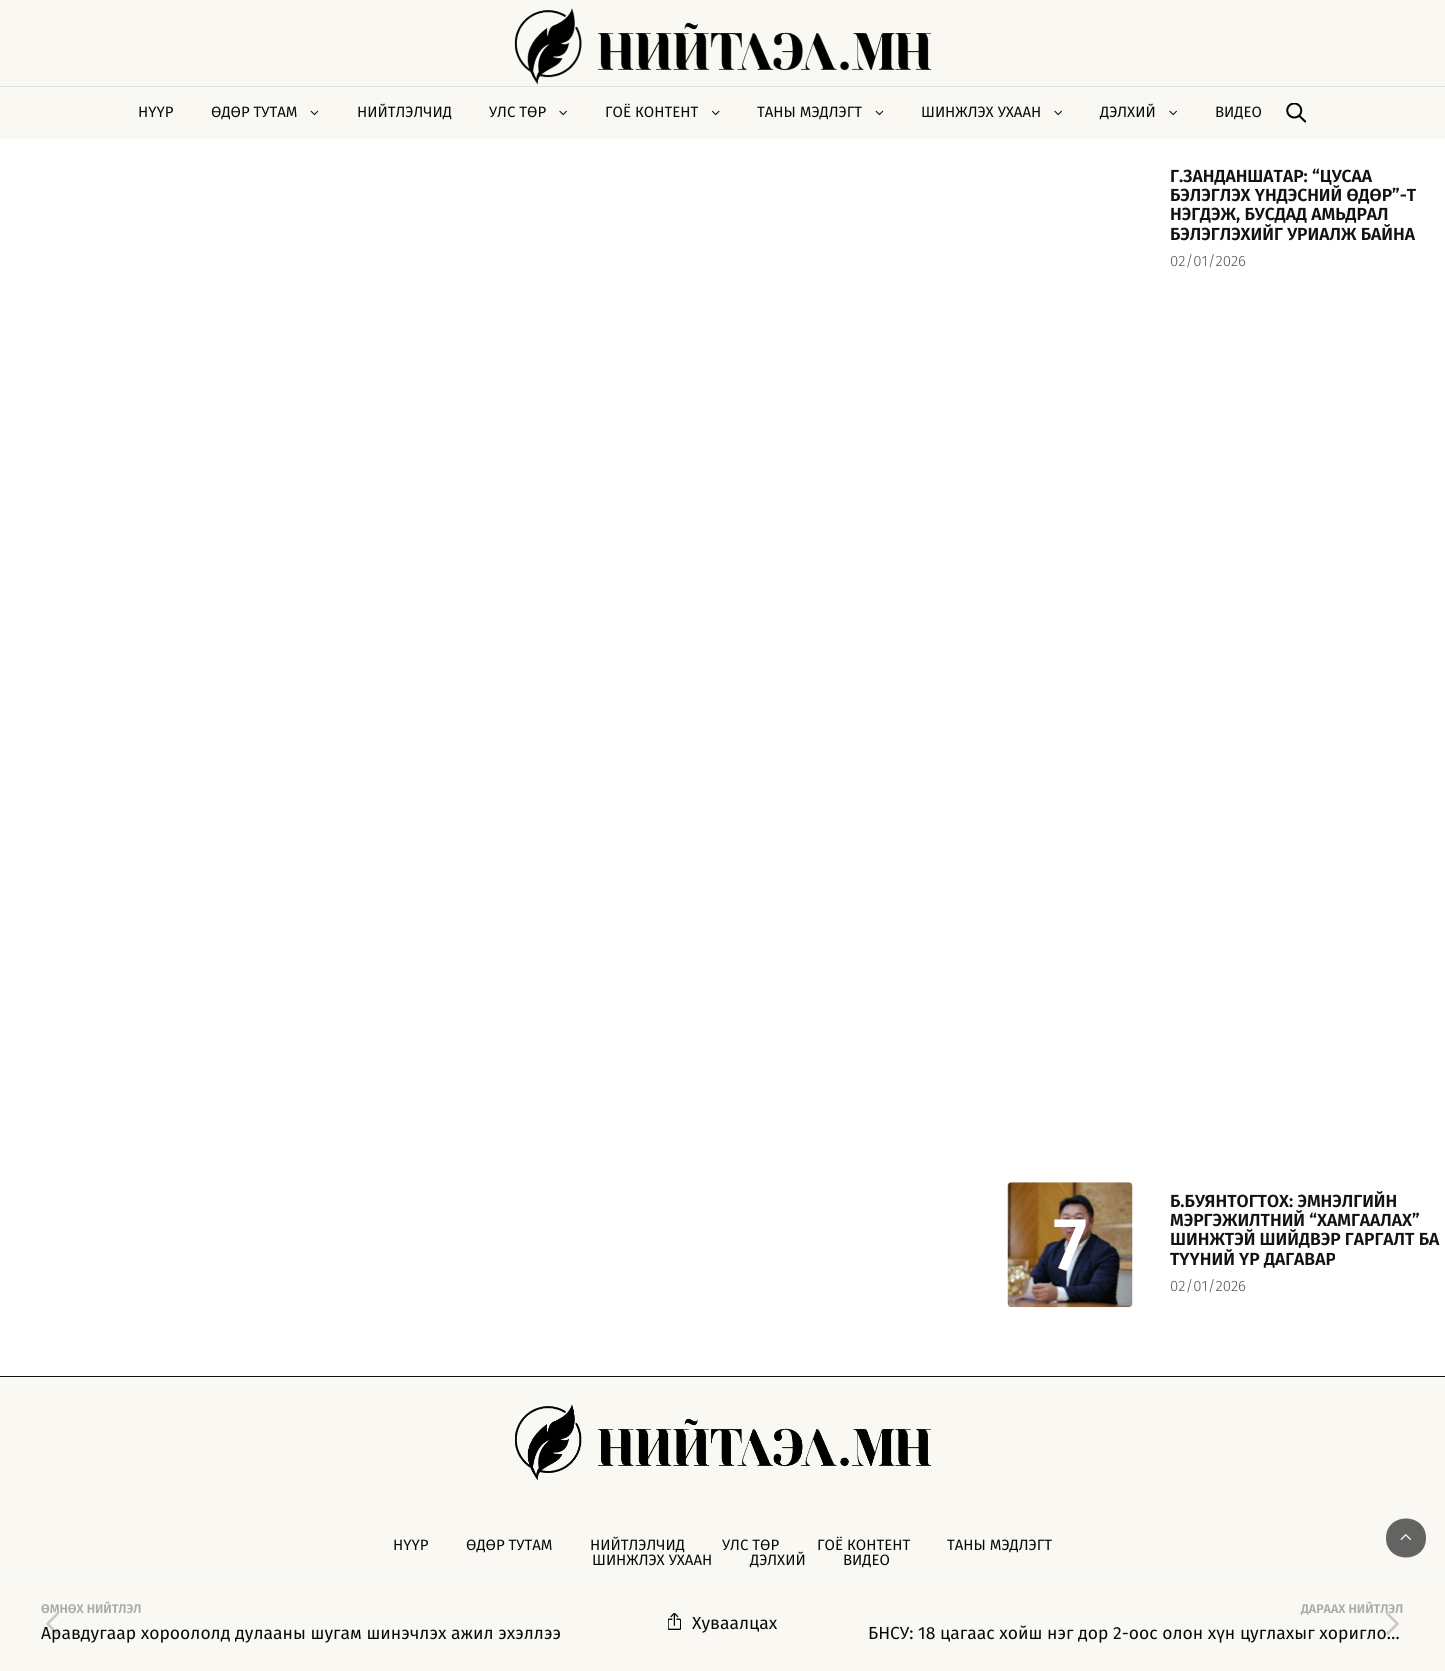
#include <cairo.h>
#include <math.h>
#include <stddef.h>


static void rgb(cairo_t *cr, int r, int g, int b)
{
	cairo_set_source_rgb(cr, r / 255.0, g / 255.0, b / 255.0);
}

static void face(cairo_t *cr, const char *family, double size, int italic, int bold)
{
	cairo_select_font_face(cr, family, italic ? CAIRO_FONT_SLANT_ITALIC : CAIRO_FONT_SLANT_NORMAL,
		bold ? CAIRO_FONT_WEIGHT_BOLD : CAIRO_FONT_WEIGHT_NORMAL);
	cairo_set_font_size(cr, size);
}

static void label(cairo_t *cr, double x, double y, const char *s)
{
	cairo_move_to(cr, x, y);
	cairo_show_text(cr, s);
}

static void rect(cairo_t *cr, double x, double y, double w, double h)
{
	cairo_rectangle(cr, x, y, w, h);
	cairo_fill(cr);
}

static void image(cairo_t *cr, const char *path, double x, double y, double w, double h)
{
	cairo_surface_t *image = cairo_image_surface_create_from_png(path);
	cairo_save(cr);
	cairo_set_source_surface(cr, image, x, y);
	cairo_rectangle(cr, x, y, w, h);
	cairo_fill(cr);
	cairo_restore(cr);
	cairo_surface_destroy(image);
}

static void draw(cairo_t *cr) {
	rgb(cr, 255, 255, 255);
	cairo_paint(cr);
	rgb(cr, 249, 248, 243);
	rect(cr, 0, 0, 1445, 139);
	image(cr, "image0.png", 514, 8, 418, 77);
	rgb(cr, 223, 223, 223);
	rect(cr, 0, 86, 1445, 1);
	face(cr, "Fira Sans", 15, 0, 0);
	rgb(cr, 9, 9, 9);
	label(cr, 138, 117, "НҮҮР");
	label(cr, 211, 117, "ӨДӨР ТУТАМ");
	image(cr, "image1.png", 310, 110, 9, 6);
	label(cr, 357, 117, "НИЙТЛЭЛЧИД");
	label(cr, 489, 117, "УЛС ТӨР");
	image(cr, "image2.png", 559, 110, 8, 6);
	label(cr, 605, 117, "ГОЁ КОНТЕНТ");
	image(cr, "image3.png", 711, 110, 9, 6);
	label(cr, 757, 117, "ТАНЫ МЭДЛЭГТ");
	image(cr, "image1.png", 875, 110, 9, 6);
	label(cr, 921, 117, "ШИНЖЛЭХ УХААН");
	image(cr, "image2.png", 1054, 110, 8, 6);
	label(cr, 1100, 117, "ДЭЛХИЙ");
	image(cr, "image2.png", 1169, 110, 8, 6);
	label(cr, 1215, 117, "ВИДЕО");
	image(cr, "image4.png", 1286, 103, 20, 20);
	face(cr, "Fira Sans SemiBold", 17.5, 0, 0);
	rgb(cr, 18, 18, 18);
	label(cr, 1170, 182, "Г.ЗАНДАНШАТАР: “ЦУСАА");
	label(cr, 1170, 201, "БЭЛЭГЛЭХ ҮНДЭСНИЙ ӨДӨР”-Т");
	label(cr, 1170, 220, "НЭГДЭЖ, БУСДАД АМЬДРАЛ");
	label(cr, 1170, 240, "БЭЛЭГЛЭХИЙГ УРИАЛЖ БАЙНА");
	face(cr, "Fira Sans Light", 15, 0, 0);
	rgb(cr, 83, 83, 83);
	label(cr, 1170, 266, "02/01/2026");
	image(cr, "image5.png", 1007, 1182, 126, 126);
	face(cr, "Fira Sans Medium", 75, 0, 0);
	rgb(cr, 255, 255, 255);
	label(cr, 1053, 1270, "7");
	face(cr, "Fira Sans SemiBold", 17.5, 0, 0);
	rgb(cr, 18, 18, 18);
	label(cr, 1170, 1207, "Б.БУЯНТОГТОХ: ЭМНЭЛГИЙН");
	label(cr, 1170, 1226, "МЭРГЭЖИЛТНИЙ “ХАМГААЛАХ”");
	label(cr, 1170, 1245, "ШИНЖТЭЙ ШИЙДВЭР ГАРГАЛТ БА");
	label(cr, 1170, 1265, "ТҮҮНИЙ ҮР ДАГАВАР");
	face(cr, "Fira Sans Light", 15, 0, 0);
	rgb(cr, 83, 83, 83);
	label(cr, 1170, 1291, "02/01/2026");
	rgb(cr, 249, 248, 243);
	rect(cr, 0, 1575, 1445, 96);
	rgb(cr, 246, 246, 246);
	rect(cr, 0, 1574, 1445, 1);
	face(cr, "Fira Sans SemiBold", 12.5, 0, 0);
	rgb(cr, 170, 170, 170);
	label(cr, 41, 1613, "ӨМНӨХ НИЙТЛЭЛ");
	face(cr, "Fira Sans", 17.5, 0, 0);
	rgb(cr, 9, 9, 9);
	label(cr, 41, 1639, "Аравдугаар хороололд дулааны шугам шинэчлэх ажил эхэллээ");
	image(cr, "image6.png", 46, 1613, 13, 22);
	image(cr, "image7.png", 668, 1613, 13, 17);
	label(cr, 692, 1629, "Хуваалцах");
	face(cr, "Fira Sans SemiBold", 12.5, 0, 0);
	rgb(cr, 170, 170, 170);
	label(cr, 1301, 1613, "ДАРААХ НИЙТЛЭЛ");
	face(cr, "Fira Sans", 17.5, 0, 0);
	rgb(cr, 9, 9, 9);
	label(cr, 868, 1639, "БНСУ: 18 цагаас хойш нэг дор 2-оос олон хүн цуглахыг хоригло…");
	image(cr, "image8.png", 1386, 1613, 13, 22);
	rgb(cr, 249, 248, 243);
	rect(cr, 0, 1377, 1445, 197);
	rgb(cr, 18, 18, 18);
	rect(cr, 0, 1376, 1445, 1);
	image(cr, "image9.png", 515, 1404, 416, 76);
	face(cr, "Fira Sans", 15, 0, 0);
	rgb(cr, 9, 9, 9);
	label(cr, 393, 1550, "НҮҮР");
	label(cr, 466, 1550, "ӨДӨР ТУТАМ");
	label(cr, 590, 1550, "НИЙТЛЭЛЧИД");
	label(cr, 722, 1550, "УЛС ТӨР");
	label(cr, 817, 1550, "ГОЁ КОНТЕНТ");
	label(cr, 947, 1550, "ТАНЫ МЭДЛЭГТ");
	label(cr, 592, 1565, "ШИНЖЛЭХ УХААН");
	label(cr, 750, 1565, "ДЭЛХИЙ");
	label(cr, 843, 1565, "ВИДЕО");
	rgb(cr, 100, 99, 97);
	cairo_new_path(cr);
	cairo_move_to(cr, 1426, 1538);
	cairo_curve_to(cr, 1426, 1564, 1386, 1564, 1386, 1538);
	cairo_curve_to(cr, 1386, 1512, 1426, 1512, 1426, 1538);
	cairo_close_path(cr);
	cairo_fill(cr);
	image(cr, "image10.png", 1400, 1534, 11, 6);
}

int main(void) {
	cairo_surface_t *surface = cairo_image_surface_create(CAIRO_FORMAT_RGB24, 1445, 1671);
	cairo_t *cr = cairo_create(surface);
	cairo_font_options_t *options = cairo_font_options_create();
	cairo_font_options_set_hint_metrics(options, CAIRO_HINT_METRICS_OFF);
	cairo_font_options_set_hint_style(options, CAIRO_HINT_STYLE_NONE);
	cairo_set_font_options(cr, options);
	cairo_set_miter_limit(cr, 4);
	draw(cr);
	cairo_surface_write_to_png(surface, "render.png");
	cairo_font_options_destroy(options);
	cairo_destroy(cr);
	cairo_surface_destroy(surface);
	return 0;
}
